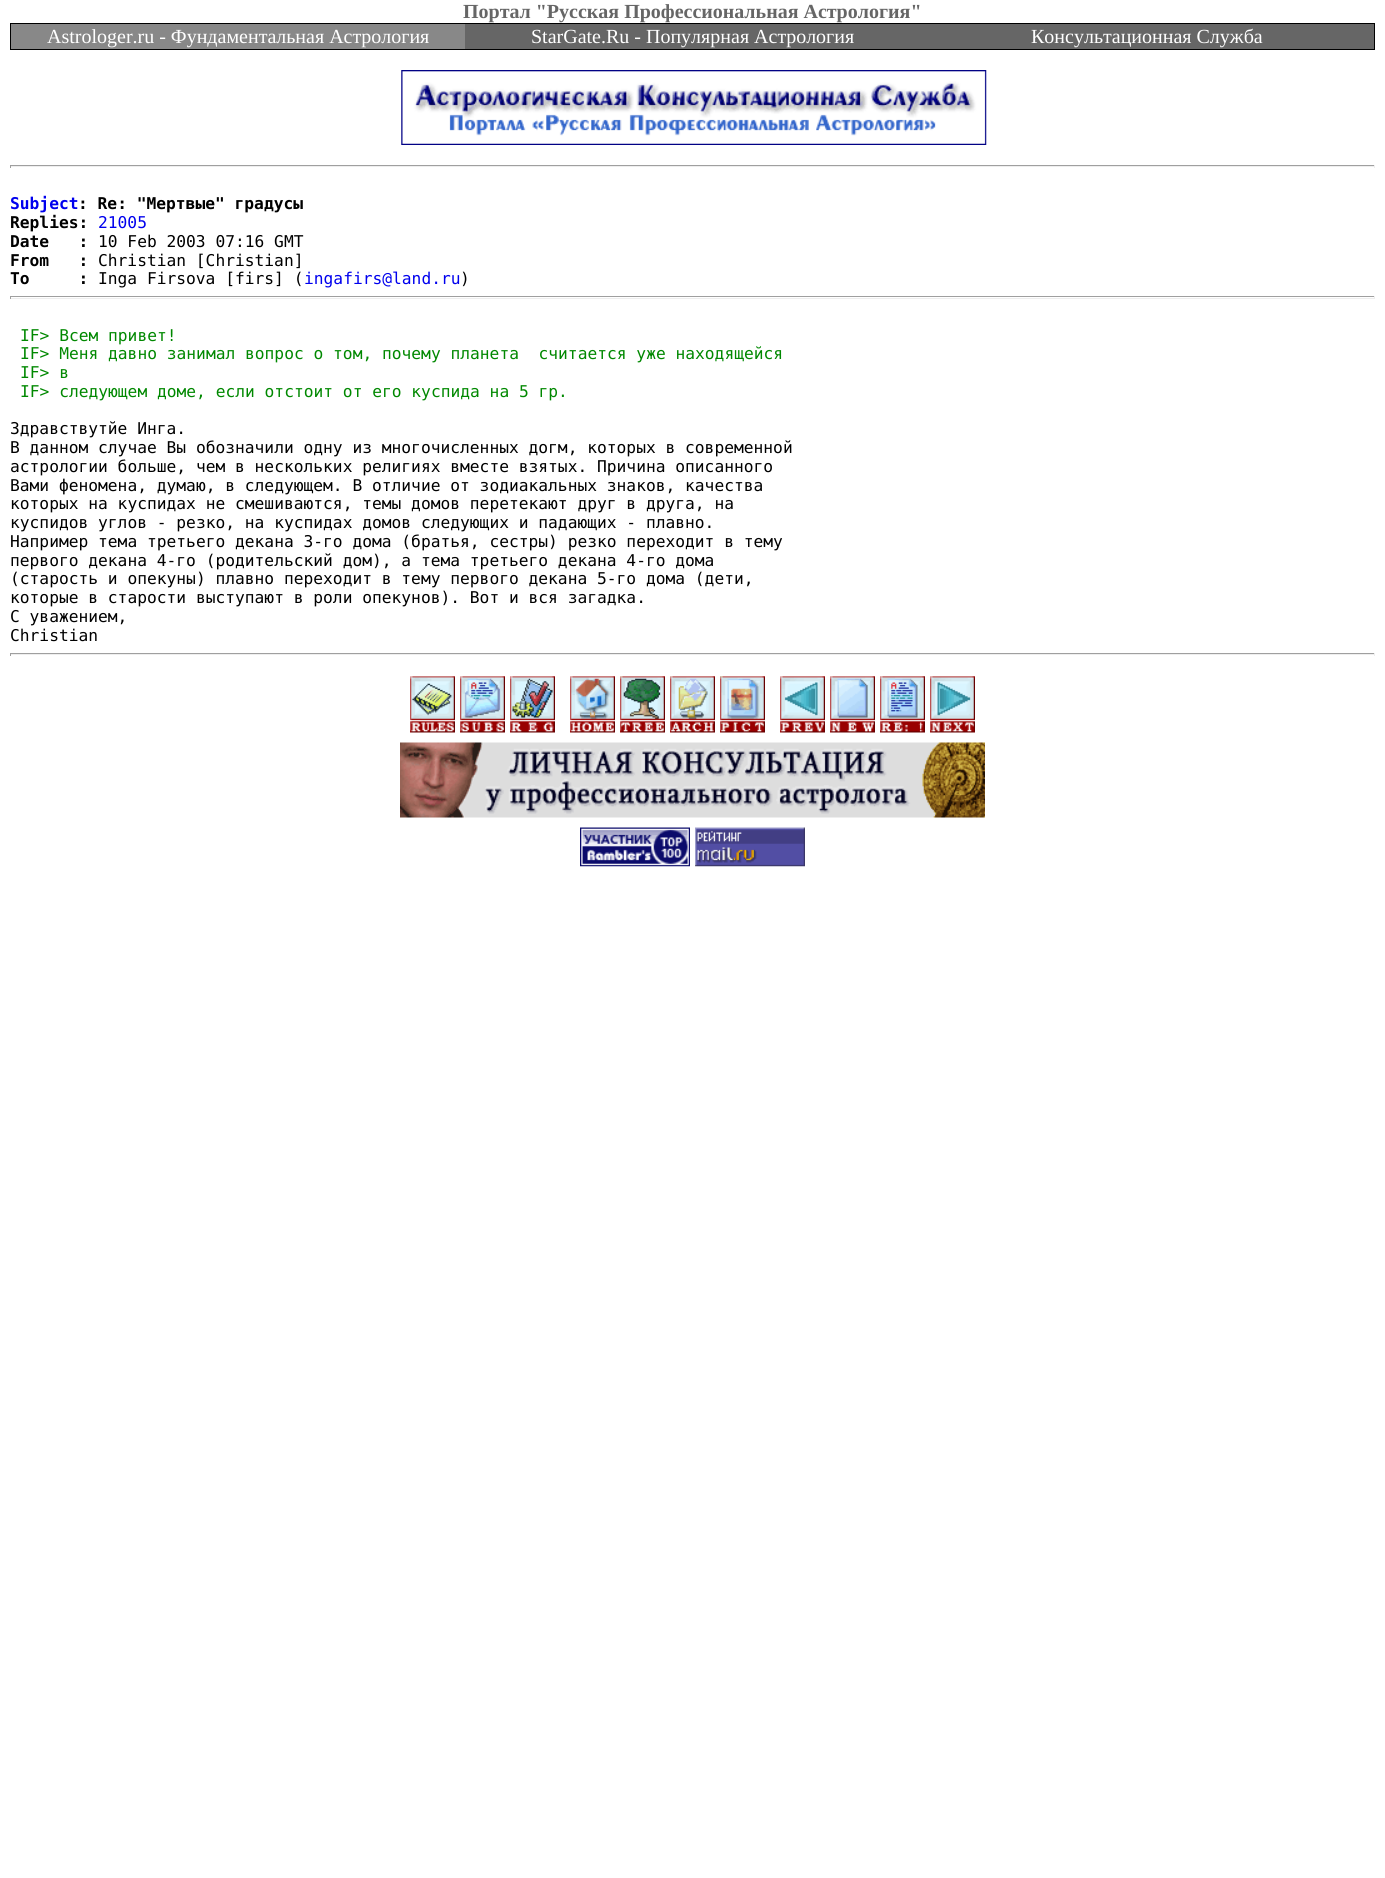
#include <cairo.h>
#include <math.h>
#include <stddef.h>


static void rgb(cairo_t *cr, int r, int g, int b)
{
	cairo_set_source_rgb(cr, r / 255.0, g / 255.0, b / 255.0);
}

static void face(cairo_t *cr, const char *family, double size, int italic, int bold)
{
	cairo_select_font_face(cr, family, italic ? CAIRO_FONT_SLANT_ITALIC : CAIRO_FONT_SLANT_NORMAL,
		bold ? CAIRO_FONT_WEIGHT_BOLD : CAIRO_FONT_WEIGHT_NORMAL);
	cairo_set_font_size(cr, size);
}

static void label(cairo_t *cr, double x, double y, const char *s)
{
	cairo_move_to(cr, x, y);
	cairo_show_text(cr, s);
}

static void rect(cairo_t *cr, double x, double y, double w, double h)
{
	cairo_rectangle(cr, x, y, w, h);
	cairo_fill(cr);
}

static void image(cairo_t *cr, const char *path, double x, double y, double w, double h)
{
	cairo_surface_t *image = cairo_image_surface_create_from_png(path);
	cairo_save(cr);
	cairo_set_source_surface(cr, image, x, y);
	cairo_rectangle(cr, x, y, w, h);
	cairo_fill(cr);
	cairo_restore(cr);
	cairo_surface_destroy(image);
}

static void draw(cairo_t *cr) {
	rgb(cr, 255, 255, 255);
	cairo_paint(cr);
	face(cr, "Liberation Serif", 20, 0, 1);
	rgb(cr, 102, 102, 102);
	label(cr, 463, 18, "Портал \"Русская Профессиональная Астрология\"");
	rgb(cr, 0, 0, 0);
	rect(cr, 10, 23, 1365, 27);
	rgb(cr, 102, 102, 102);
	rect(cr, 465, 24, 909, 25);
	rgb(cr, 136, 136, 136);
	rect(cr, 11, 24, 454, 25);
	face(cr, "Liberation Serif", 20, 0, 0);
	rgb(cr, 255, 255, 255);
	label(cr, 47, 43, "Astrologer.ru - Фундаментальная Астрология");
	label(cr, 531, 43, "StarGate.Ru - Популярная Астрология");
	label(cr, 1031, 43, "Консультационная Служба");
	image(cr, "image0.png", 401, 70, 586, 75);
	rgb(cr, 159, 159, 159);
	rect(cr, 10, 165, 1365, 1);
	rgb(cr, 238, 238, 238);
	rect(cr, 1374, 165, 1, 3);
	rect(cr, 10, 166, 1365, 1);
	rgb(cr, 159, 159, 159);
	rect(cr, 10, 165, 1, 3);
	face(cr, "DejaVu Sans Mono", 16.25, 0, 1);
	rgb(cr, 0, 0, 238);
	label(cr, 10, 209, "Subject");
	rgb(cr, 0, 0, 0);
	label(cr, 78, 209, ": Re: \"Мертвые\" градусы");
	label(cr, 10, 228, "Replies:");
	face(cr, "DejaVu Sans Mono", 16.25, 0, 0);
	rgb(cr, 0, 0, 238);
	label(cr, 98, 228, "21005");
	face(cr, "DejaVu Sans Mono", 16.25, 0, 1);
	rgb(cr, 0, 0, 0);
	label(cr, 10, 247, "Date   :");
	face(cr, "DejaVu Sans Mono", 16.25, 0, 0);
	label(cr, 98, 247, "10 Feb 2003 07:16 GMT");
	face(cr, "DejaVu Sans Mono", 16.25, 0, 1);
	label(cr, 10, 266, "From   :");
	face(cr, "DejaVu Sans Mono", 16.25, 0, 0);
	label(cr, 98, 266, "Christian [Christian]");
	face(cr, "DejaVu Sans Mono", 16.25, 0, 1);
	label(cr, 10, 284, "To     :");
	face(cr, "DejaVu Sans Mono", 16.25, 0, 0);
	label(cr, 98, 284, "Inga Firsova [firs] (");
	rgb(cr, 0, 0, 238);
	label(cr, 304, 284, "ingafirs@land.ru");
	rgb(cr, 0, 0, 0);
	label(cr, 460, 284, ")");
	rgb(cr, 159, 159, 159);
	rect(cr, 10, 296, 1365, 1);
	rgb(cr, 238, 238, 238);
	rect(cr, 1374, 296, 1, 3);
	rect(cr, 10, 298, 1365, 1);
	rgb(cr, 159, 159, 159);
	rect(cr, 10, 296, 1, 3);
	rgb(cr, 0, 136, 0);
	label(cr, 20, 341, "IF> Всем привет!");
	label(cr, 20, 359, "IF> Меня давно занимал вопрос о том, почему планета  считается уже находящейся");
	label(cr, 20, 378, "IF> в");
	label(cr, 20, 397, "IF> следующем доме, если отстоит от его куспида на 5 гр.");
	rgb(cr, 0, 0, 0);
	label(cr, 10, 434, "Здравствутйе Инга.");
	label(cr, 10, 453, "В данном случае Вы обозначили одну из многочисленных догм, которых в современной");
	label(cr, 10, 472, "астрологии больше, чем в нескольких религиях вместе взятых. Причина описанного");
	label(cr, 10, 491, "Вами феномена, думаю, в следующем. В отличие от зодиакальных знаков, качества");
	label(cr, 10, 509, "которых на куспидах не смешиваются, темы домов перетекают друг в друга, на");
	label(cr, 10, 528, "куспидов углов - резко, на куспидах домов следующих и падающих - плавно.");
	label(cr, 10, 547, "Например тема третьего декана 3-го дома (братья, сестры) резко переходит в тему");
	label(cr, 10, 566, "первого декана 4-го (родительский дом), а тема третьего декана 4-го дома");
	label(cr, 10, 584, "(старость и опекуны) плавно переходит в тему первого декана 5-го дома (дети,");
	label(cr, 10, 603, "которые в старости выступают в роли опекунов). Вот и вся загадка.");
	label(cr, 10, 622, "С уважением,");
	label(cr, 10, 641, "Christian");
	rgb(cr, 159, 159, 159);
	rect(cr, 10, 653, 1365, 1);
	rgb(cr, 238, 238, 238);
	rect(cr, 1374, 653, 1, 3);
	rect(cr, 10, 654, 1365, 1);
	rgb(cr, 159, 159, 159);
	rect(cr, 10, 653, 1, 3);
	image(cr, "image1.png", 410, 676, 45, 57);
	image(cr, "image2.png", 460, 676, 45, 57);
	image(cr, "image3.png", 510, 676, 45, 57);
	image(cr, "image4.png", 570, 676, 45, 57);
	image(cr, "image5.png", 620, 676, 45, 57);
	image(cr, "image6.png", 670, 676, 45, 57);
	image(cr, "image7.png", 720, 676, 45, 57);
	image(cr, "image8.png", 780, 676, 45, 57);
	image(cr, "image9.png", 830, 676, 45, 57);
	image(cr, "image10.png", 880, 676, 45, 57);
	image(cr, "image11.png", 930, 676, 45, 57);
	image(cr, "image12.png", 400, 742, 585, 76);
	image(cr, "image13.png", 580, 827, 110, 40);
	image(cr, "image14.png", 695, 827, 110, 40);
}

int main(void) {
	cairo_surface_t *surface = cairo_image_surface_create(CAIRO_FORMAT_RGB24, 1385, 1878);
	cairo_t *cr = cairo_create(surface);
	cairo_font_options_t *options = cairo_font_options_create();
	cairo_font_options_set_hint_metrics(options, CAIRO_HINT_METRICS_OFF);
	cairo_font_options_set_hint_style(options, CAIRO_HINT_STYLE_NONE);
	cairo_set_font_options(cr, options);
	cairo_set_miter_limit(cr, 4);
	draw(cr);
	cairo_surface_write_to_png(surface, "render.png");
	cairo_font_options_destroy(options);
	cairo_destroy(cr);
	cairo_surface_destroy(surface);
	return 0;
}
